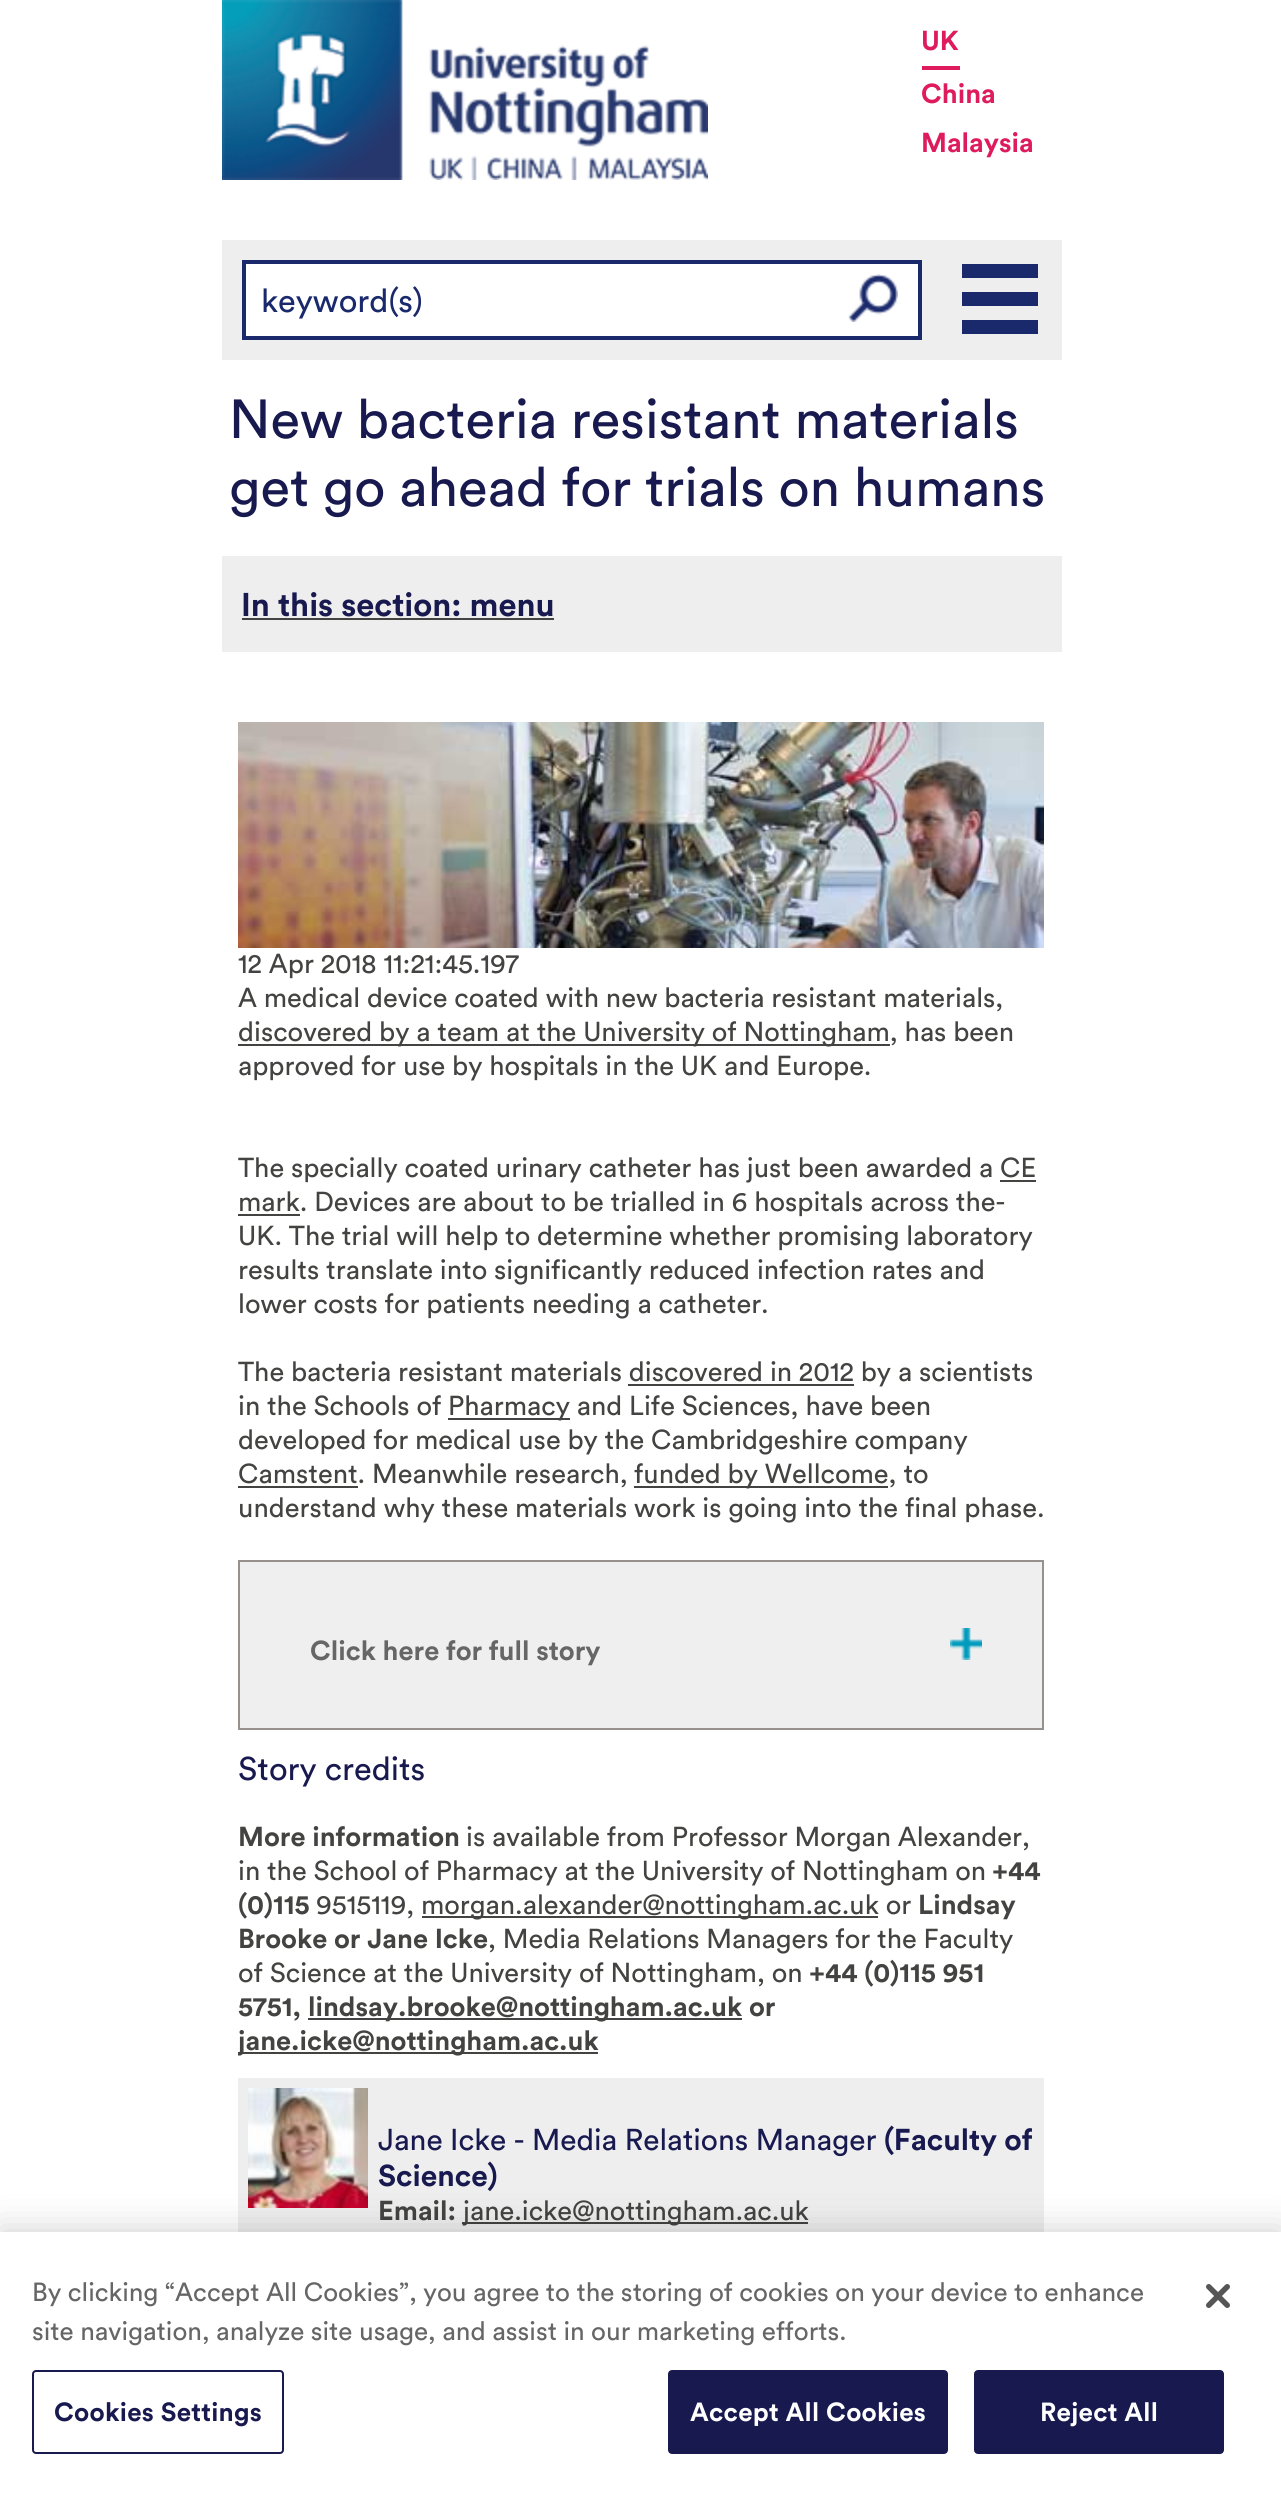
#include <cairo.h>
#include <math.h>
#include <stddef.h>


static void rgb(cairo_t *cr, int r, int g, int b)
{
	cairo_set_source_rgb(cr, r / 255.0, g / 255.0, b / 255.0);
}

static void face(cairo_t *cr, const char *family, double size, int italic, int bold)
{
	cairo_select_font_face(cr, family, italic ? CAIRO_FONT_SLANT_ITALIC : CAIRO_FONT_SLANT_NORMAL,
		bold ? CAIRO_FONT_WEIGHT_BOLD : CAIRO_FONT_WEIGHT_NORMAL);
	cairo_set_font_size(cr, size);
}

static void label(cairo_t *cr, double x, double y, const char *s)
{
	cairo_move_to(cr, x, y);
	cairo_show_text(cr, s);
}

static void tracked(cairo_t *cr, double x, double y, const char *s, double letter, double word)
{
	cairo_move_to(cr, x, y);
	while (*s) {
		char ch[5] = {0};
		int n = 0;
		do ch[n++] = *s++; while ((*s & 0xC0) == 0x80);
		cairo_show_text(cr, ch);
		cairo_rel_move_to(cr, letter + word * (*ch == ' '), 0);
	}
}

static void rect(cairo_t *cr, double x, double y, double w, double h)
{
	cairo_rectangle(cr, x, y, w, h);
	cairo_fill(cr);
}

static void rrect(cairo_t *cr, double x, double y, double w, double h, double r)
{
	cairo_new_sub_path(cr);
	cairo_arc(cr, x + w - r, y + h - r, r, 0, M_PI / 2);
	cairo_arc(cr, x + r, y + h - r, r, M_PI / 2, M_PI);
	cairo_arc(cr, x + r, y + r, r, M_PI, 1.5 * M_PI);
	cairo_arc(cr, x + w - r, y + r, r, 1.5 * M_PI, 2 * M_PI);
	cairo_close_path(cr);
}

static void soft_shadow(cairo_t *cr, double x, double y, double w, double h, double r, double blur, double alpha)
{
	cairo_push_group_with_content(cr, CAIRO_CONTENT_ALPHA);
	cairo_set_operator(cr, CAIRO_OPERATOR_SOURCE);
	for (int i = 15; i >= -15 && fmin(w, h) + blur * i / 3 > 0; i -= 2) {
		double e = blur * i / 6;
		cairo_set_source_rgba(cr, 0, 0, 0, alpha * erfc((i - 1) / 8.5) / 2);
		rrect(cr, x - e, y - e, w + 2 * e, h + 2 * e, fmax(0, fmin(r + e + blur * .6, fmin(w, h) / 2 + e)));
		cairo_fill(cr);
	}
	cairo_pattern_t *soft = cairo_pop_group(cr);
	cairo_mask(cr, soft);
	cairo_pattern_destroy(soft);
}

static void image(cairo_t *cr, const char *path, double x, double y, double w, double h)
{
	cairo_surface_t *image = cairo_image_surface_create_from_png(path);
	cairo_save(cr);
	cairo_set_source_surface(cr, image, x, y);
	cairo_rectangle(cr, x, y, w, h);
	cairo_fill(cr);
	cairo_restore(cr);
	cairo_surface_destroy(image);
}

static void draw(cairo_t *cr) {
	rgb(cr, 255, 255, 255);
	cairo_paint(cr);
	image(cr, "image0.png", 222, 0, 486, 180);
	rgb(cr, 222, 27, 92);
	rect(cr, 922, 66, 38, 4);
	face(cr, "Circular", 27.2, 0, 1);
	label(cr, 921, 50, "UK");
	label(cr, 921, 103, "China");
	label(cr, 921, 152, "Malaysia");
	rgb(cr, 238, 238, 238);
	rect(cr, 222, 240, 840, 120);
	rgb(cr, 255, 255, 255);
	cairo_rectangle(cr, 244, 262, 676, 76);
	cairo_fill_preserve(cr);
	rgb(cr, 26, 41, 107);
	cairo_set_line_width(cr, 4);
	cairo_stroke(cr);
	face(cr, "Circular", 32.6, 0, 0);
	label(cr, 261, 312, "keyword(s)");
	image(cr, "image1.png", 848, 274, 50, 48);
	rect(cr, 962, 264, 76, 14);
	rect(cr, 962, 292, 76, 14);
	rect(cr, 962, 320, 76, 14);
	face(cr, "Circular", 54.4, 0, 0);
	rgb(cr, 24, 25, 79);
	label(cr, 229, 438, "New bacteria resistant materials");
	label(cr, 229, 506, "get go ahead for trials on humans");
	rgb(cr, 238, 238, 238);
	rect(cr, 222, 556, 840, 96);
	face(cr, "Circular", 32.6, 0, 1);
	rgb(cr, 24, 25, 79);
	label(cr, 241, 616, "In this section: menu");
	rgb(cr, 67, 67, 65);
	rect(cr, 242, 618, 312, 2);
	image(cr, "image2.png", 238, 722, 806, 226);
	face(cr, "Circular", 27.2, 0, 0);
	label(cr, 238, 973, "12 Apr 2018 11:21:45.197");
	label(cr, 238, 1007, "A medical device coated with new bacteria resistant materials,");
	rect(cr, 238, 1044, 652, 2);
	label(cr, 238, 1041, "discovered by a team at the University of Nottingham, has been");
	label(cr, 238, 1075, "approved for use by hospitals in the UK and Europe.");
	label(cr, 238, 1177, "The specially coated urinary catheter has just been awarded a");
	label(cr, 1000, 1177, "CE");
	rect(cr, 1000, 1180, 36, 2);
	rect(cr, 238, 1214, 62, 2);
	label(cr, 238, 1211, "mark. Devices are about to be trialled in 6 hospitals across the-");
	label(cr, 238, 1245, "UK. The trial will help to determine whether promising laboratory");
	label(cr, 238, 1279, "results translate into significantly reduced infection rates and");
	label(cr, 238, 1313, "lower costs for patients needing a catheter.");
	label(cr, 238, 1381, "The bacteria resistant materials discovered in 2012 by a scientists");
	rect(cr, 628, 1384, 226, 2);
	label(cr, 238, 1415, "in the Schools of");
	rect(cr, 448, 1418, 122, 2);
	label(cr, 448, 1415, "Pharmacy and Life Sciences, have been");
	label(cr, 238, 1449, "developed for medical use by the Cambridgeshire company");
	rect(cr, 238, 1486, 120, 2);
	label(cr, 238, 1483, "Camstent. Meanwhile research,");
	rect(cr, 634, 1486, 254, 2);
	label(cr, 634, 1483, "funded by Wellcome, to");
	label(cr, 238, 1517, "understand why these materials work is going into the final phase.");
	rgb(cr, 239, 239, 239);
	rect(cr, 240, 1562, 802, 166);
	image(cr, "image3.png", 950, 1628, 32, 32);
	cairo_rectangle(cr, 239, 1561, 804, 168);
	rgb(cr, 151, 145, 142);
	cairo_set_line_width(cr, 2);
	cairo_stroke(cr);
	face(cr, "Circular", 27.2, 0, 1);
	rgb(cr, 102, 102, 102);
	label(cr, 310, 1660, "Click here for full story");
	face(cr, "Circular", 32.6, 0, 0);
	rgb(cr, 24, 25, 79);
	label(cr, 238, 1780, "Story credits");
	face(cr, "Circular", 27.2, 0, 1);
	rgb(cr, 67, 67, 65);
	label(cr, 238, 1846, "More information");
	face(cr, "Circular", 27.2, 0, 0);
	label(cr, 466, 1846, "is available from Professor Morgan Alexander,");
	label(cr, 238, 1880, "in the School of Pharmacy at the University of Nottingham on");
	face(cr, "Circular", 27.2, 0, 1);
	label(cr, 992, 1880, "+44");
	label(cr, 238, 1914, "(0)115");
	face(cr, "Circular", 27.2, 0, 0);
	label(cr, 316, 1914, "9515119,");
	rect(cr, 422, 1916, 456, 2);
	label(cr, 421, 1914, "morgan.alexander@nottingham.ac.uk or");
	face(cr, "Circular", 27.2, 0, 1);
	label(cr, 918, 1914, "Lindsay");
	label(cr, 238, 1948, "Brooke or Jane Icke");
	face(cr, "Circular", 27.2, 0, 0);
	label(cr, 488, 1948, ", Media Relations Managers for the Faculty");
	label(cr, 238, 1982, "of Science at the University of Nottingham, on");
	face(cr, "Circular", 27.2, 0, 1);
	label(cr, 809, 1982, "+44 (0)115 951");
	label(cr, 238, 2016, "5751,");
	rect(cr, 308, 2018, 434, 2);
	label(cr, 308, 2016, "lindsay.brooke@nottingham.ac.uk or");
	rect(cr, 238, 2052, 360, 2);
	cairo_save(cr);
	cairo_rectangle(cr, 238, 688, 806, 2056);
	cairo_clip(cr);
	label(cr, 238, 2050, "jane.icke@nottingham.ac.uk");
	cairo_restore(cr);
	rgb(cr, 238, 238, 238);
	rect(cr, 238, 2078, 806, 154);
	image(cr, "image4.png", 248, 2088, 120, 120);
	face(cr, "Circular", 29.9, 0, 0);
	rgb(cr, 24, 25, 79);
	label(cr, 378, 2150, "Jane Icke - Media Relations Manager");
	face(cr, "Circular", 29.9, 0, 1);
	label(cr, 884, 2150, "(Faculty of");
	label(cr, 378, 2186, "Science)");
	face(cr, "Circular", 27.2, 0, 1);
	rgb(cr, 67, 67, 65);
	label(cr, 378, 2220, "Email:");
	rect(cr, 462, 2222, 346, 2);
	face(cr, "Circular", 27.2, 0, 0);
	label(cr, 463, 2220, "jane.icke@nottingham.ac.uk");
	rgb(cr, 0, 0, 0);
	soft_shadow(cr, 0, 2232, 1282, 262, 0, 18, 0.2);
	rgb(cr, 255, 255, 255);
	rect(cr, 0, 2232, 1281, 261);
	face(cr, "Circular", 26, 0, 0);
	rgb(cr, 102, 102, 102);
	label(cr, 32, 2301, "By clicking “Accept All Cookies”, you agree to the storing of cookies on your device to enhance");
	label(cr, 32, 2340, "site navigation, analyze site usage, and assist in our marketing efforts.");
	rrect(cr, 33, 2371, 250, 82, 3);
	rgb(cr, 24, 25, 79);
	cairo_stroke(cr);
	face(cr, "Circular", 26, 0, 1);
	tracked(cr, 54, 2421, "Cookies Settings", 0.25, 0);
	rrect(cr, 669, 2371, 278, 82, 3);
	cairo_fill_preserve(cr);
	cairo_stroke(cr);
	rgb(cr, 255, 255, 255);
	tracked(cr, 690, 2421, "Accept All Cookies", 0.25, 0);
	rgb(cr, 24, 25, 79);
	rrect(cr, 975, 2371, 248, 82, 3);
	cairo_fill_preserve(cr);
	cairo_stroke(cr);
	rgb(cr, 255, 255, 255);
	tracked(cr, 1040, 2421, "Reject All", 0.25, 0);
	image(cr, "image5.png", 1206, 2284, 24, 24);
}

int main(void) {
	cairo_surface_t *surface = cairo_image_surface_create(CAIRO_FORMAT_RGB24, 1281, 2493);
	cairo_t *cr = cairo_create(surface);
	cairo_font_options_t *options = cairo_font_options_create();
	cairo_font_options_set_hint_metrics(options, CAIRO_HINT_METRICS_OFF);
	cairo_font_options_set_hint_style(options, CAIRO_HINT_STYLE_NONE);
	cairo_set_font_options(cr, options);
	cairo_set_miter_limit(cr, 4);
	draw(cr);
	cairo_surface_write_to_png(surface, "render.png");
	cairo_font_options_destroy(options);
	cairo_destroy(cr);
	cairo_surface_destroy(surface);
	return 0;
}
